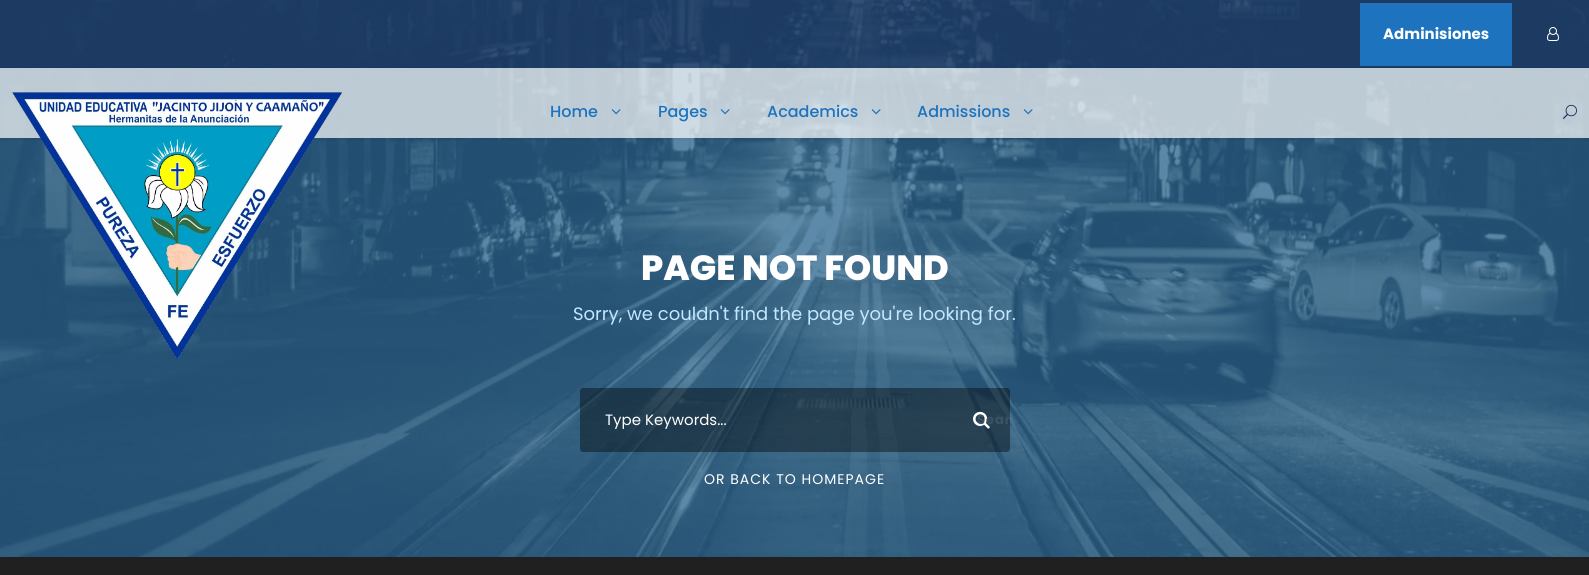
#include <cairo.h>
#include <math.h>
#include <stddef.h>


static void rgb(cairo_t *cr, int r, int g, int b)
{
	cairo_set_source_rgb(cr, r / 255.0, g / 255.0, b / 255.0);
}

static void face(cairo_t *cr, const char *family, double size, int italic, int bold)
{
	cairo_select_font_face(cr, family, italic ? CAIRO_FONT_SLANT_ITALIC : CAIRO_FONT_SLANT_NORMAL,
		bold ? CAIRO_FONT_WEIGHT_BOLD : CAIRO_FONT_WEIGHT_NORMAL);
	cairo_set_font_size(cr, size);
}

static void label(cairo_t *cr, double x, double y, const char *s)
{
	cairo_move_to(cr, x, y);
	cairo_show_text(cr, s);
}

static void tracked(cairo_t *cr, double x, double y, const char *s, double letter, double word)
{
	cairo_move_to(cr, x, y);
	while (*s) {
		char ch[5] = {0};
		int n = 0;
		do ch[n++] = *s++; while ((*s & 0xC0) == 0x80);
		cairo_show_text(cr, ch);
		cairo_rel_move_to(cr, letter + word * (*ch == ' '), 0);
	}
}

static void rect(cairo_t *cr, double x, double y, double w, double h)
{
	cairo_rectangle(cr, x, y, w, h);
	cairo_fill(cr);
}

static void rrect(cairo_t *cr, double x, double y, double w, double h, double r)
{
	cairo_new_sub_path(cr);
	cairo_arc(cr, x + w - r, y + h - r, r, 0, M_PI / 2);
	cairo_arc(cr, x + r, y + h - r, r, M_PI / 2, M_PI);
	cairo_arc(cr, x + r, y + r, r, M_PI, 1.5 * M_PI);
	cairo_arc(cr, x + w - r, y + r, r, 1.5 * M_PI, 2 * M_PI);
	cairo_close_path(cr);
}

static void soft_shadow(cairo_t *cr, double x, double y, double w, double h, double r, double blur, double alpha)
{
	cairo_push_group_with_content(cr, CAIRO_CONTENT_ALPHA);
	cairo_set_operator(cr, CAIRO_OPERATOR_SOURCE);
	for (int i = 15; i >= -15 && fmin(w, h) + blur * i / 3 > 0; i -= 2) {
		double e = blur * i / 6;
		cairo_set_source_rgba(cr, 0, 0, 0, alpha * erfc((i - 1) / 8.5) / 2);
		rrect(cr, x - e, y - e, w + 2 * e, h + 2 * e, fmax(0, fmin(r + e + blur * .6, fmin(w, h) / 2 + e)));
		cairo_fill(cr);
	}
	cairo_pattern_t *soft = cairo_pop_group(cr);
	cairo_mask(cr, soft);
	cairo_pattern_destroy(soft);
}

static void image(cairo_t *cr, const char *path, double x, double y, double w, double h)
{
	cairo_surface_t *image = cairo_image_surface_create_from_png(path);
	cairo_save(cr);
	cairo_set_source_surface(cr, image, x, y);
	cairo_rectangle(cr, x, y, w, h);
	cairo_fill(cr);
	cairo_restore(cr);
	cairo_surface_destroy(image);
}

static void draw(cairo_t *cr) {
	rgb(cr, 32, 32, 32);
	cairo_paint(cr);
	rgb(cr, 35, 97, 142);
	rect(cr, 0, 0, 1589, 557);
	image(cr, "image7.png", 0, 0, 1589, 557);
	cairo_set_source_rgba(cr, 0.098, 0.184, 0.349, 0.63);
	rect(cr, 0, 0, 1589, 68);
	rgb(cr, 30, 115, 190);
	rect(cr, 1360, 3, 152, 63);
	face(cr, "Poppins", 15, 0, 1);
	rgb(cr, 255, 255, 255);
	label(cr, 1383, 39, "Adminisiones");
	image(cr, "image0.png", 1547, 27, 12, 14);
	cairo_save(cr);
	cairo_set_fill_rule(cr, CAIRO_FILL_RULE_EVEN_ODD);
	cairo_new_path(cr);
	cairo_move_to(cr, 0, 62);
	cairo_line_to(cr, 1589, 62);
	cairo_line_to(cr, 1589, 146);
	cairo_line_to(cr, 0, 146);
	cairo_close_path(cr);
	cairo_move_to(cr, 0, 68);
	cairo_line_to(cr, 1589, 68);
	cairo_line_to(cr, 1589, 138);
	cairo_line_to(cr, 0, 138);
	cairo_close_path(cr);
	cairo_clip(cr);
	rgb(cr, 0, 0, 0);
	soft_shadow(cr, 0, 69, 1589, 70, 0, 2, 0.1);
	cairo_restore(cr);
	cairo_set_source_rgba(cr, 1, 1, 1, 0.7);
	rect(cr, 0, 68, 1589, 70);
	image(cr, "image1.png", 12, 92, 330, 267);
	face(cr, "Poppins Medium", 16, 0, 0);
	rgb(cr, 30, 115, 190);
	label(cr, 550, 117, "Home");
	image(cr, "image2.png", 611, 109, 10, 6);
	label(cr, 658, 117, "Pages");
	image(cr, "image3.png", 720, 109, 10, 6);
	label(cr, 767, 117, "Academics");
	image(cr, "image4.png", 871, 109, 10, 6);
	label(cr, 917, 117, "Admissions");
	image(cr, "image5.png", 1023, 109, 10, 6);
	image(cr, "image6.png", 1563, 104, 14, 15);
	face(cr, "Poppins ExtraBold", 35, 0, 0);
	rgb(cr, 255, 255, 255);
	label(cr, 641, 280, "PAGE NOT FOUND");
	face(cr, "Poppins", 18, 0, 0);
	rgb(cr, 195, 231, 255);
	label(cr, 573, 320, "Sorry, we couldn't find the page you're looking for.");
	cairo_set_source_rgba(cr, 0, 0, 0, 0.4);
	rrect(cr, 580, 388, 430, 64, 3);
	cairo_fill(cr);
	face(cr, "Poppins", 15, 0, 0);
	rgb(cr, 255, 255, 255);
	label(cr, 605, 425, "Type Keywords...");
	image(cr, "image8.png", 973, 411, 17, 18);
	face(cr, "Poppins", 13, 0, 1);
	rgb(cr, 58, 82, 98);
	tracked(cr, 977, 424, "Sear", 1, 0);
	face(cr, "Poppins", 14, 0, 0);
	rgb(cr, 255, 255, 255);
	tracked(cr, 704, 484, "OR BACK TO HOMEPAGE", 1, 0);
}

int main(void) {
	cairo_surface_t *surface = cairo_image_surface_create(CAIRO_FORMAT_RGB24, 1589, 575);
	cairo_t *cr = cairo_create(surface);
	cairo_font_options_t *options = cairo_font_options_create();
	cairo_font_options_set_hint_metrics(options, CAIRO_HINT_METRICS_OFF);
	cairo_font_options_set_hint_style(options, CAIRO_HINT_STYLE_NONE);
	cairo_set_font_options(cr, options);
	cairo_set_miter_limit(cr, 4);
	draw(cr);
	cairo_surface_write_to_png(surface, "render.png");
	cairo_font_options_destroy(options);
	cairo_destroy(cr);
	cairo_surface_destroy(surface);
	return 0;
}
